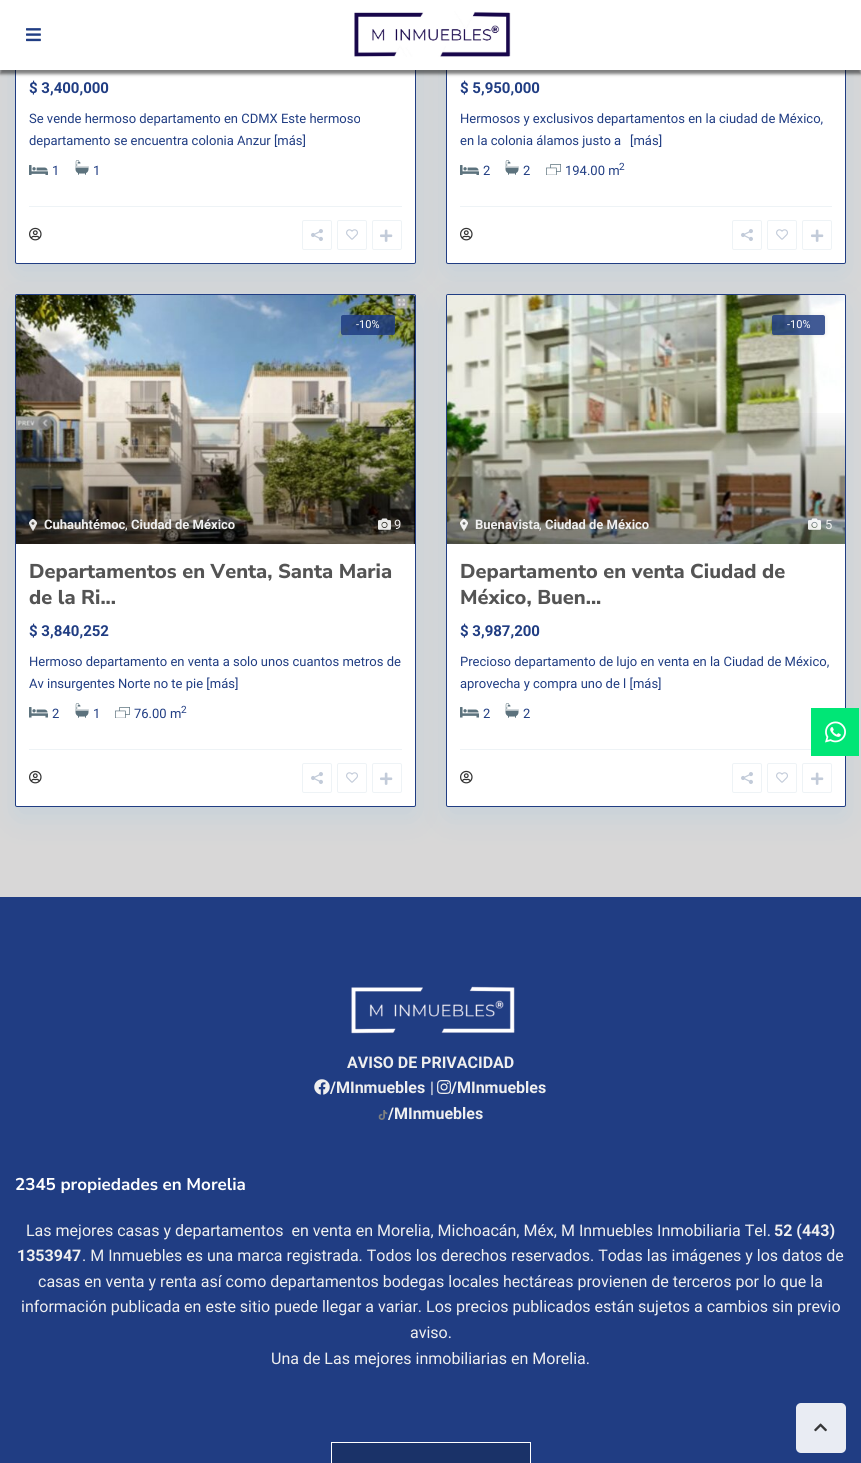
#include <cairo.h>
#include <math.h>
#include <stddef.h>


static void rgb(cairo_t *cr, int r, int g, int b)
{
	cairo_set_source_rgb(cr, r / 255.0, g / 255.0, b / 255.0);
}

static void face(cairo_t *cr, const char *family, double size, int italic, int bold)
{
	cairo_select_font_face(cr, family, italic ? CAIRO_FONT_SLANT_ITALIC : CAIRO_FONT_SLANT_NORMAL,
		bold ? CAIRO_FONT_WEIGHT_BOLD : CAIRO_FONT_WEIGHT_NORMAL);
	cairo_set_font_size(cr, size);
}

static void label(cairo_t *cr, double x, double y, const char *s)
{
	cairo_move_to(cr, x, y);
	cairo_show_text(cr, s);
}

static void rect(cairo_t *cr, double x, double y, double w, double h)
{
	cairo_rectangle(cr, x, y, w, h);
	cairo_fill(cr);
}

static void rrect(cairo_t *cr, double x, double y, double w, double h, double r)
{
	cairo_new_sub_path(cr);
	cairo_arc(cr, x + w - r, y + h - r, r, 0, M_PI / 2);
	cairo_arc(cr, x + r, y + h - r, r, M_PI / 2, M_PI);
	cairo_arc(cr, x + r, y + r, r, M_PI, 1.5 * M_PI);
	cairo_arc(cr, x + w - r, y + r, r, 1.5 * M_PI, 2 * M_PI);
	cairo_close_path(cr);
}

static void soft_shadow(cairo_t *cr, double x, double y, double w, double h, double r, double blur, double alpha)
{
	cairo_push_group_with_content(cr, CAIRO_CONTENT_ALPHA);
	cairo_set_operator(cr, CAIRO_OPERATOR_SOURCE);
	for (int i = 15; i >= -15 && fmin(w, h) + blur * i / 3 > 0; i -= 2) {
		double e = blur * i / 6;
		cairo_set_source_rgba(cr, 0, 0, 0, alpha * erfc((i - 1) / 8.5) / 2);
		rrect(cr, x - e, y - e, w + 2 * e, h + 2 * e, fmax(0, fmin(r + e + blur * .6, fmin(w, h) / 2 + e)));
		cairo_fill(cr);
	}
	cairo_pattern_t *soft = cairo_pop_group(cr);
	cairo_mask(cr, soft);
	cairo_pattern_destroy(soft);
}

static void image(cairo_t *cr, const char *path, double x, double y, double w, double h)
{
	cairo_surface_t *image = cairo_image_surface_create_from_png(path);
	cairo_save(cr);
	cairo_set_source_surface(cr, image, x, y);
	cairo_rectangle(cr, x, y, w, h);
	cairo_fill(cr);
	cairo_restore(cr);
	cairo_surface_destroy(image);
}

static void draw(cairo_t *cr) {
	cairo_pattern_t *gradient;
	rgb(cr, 32, 61, 131);
	cairo_paint(cr);
	rgb(cr, 216, 215, 215);
	rect(cr, 0, 70, 861, 827);
	rgb(cr, 7, 152, 255);
	soft_shadow(cr, 15, -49, 401, 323, 2, 15.5, 0.09);
	rgb(cr, 255, 255, 255);
	rrect(cr, 15.5, -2.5, 400, 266, 1.5);
	cairo_fill_preserve(cr);
	rgb(cr, 32, 61, 131);
	cairo_set_line_width(cr, 1);
	cairo_stroke(cr);
	rgb(cr, 238, 243, 246);
	rect(cr, 29, 206, 373, 1);
	rrect(cr, 372.5, 220.5, 29, 29, 1.5);
	cairo_stroke(cr);
	rgb(cr, 7, 152, 255);
	soft_shadow(cr, 446, -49, 400, 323, 2, 15.5, 0.09);
	rgb(cr, 255, 255, 255);
	rrect(cr, 446.5, -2.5, 399, 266, 1.5);
	cairo_fill_preserve(cr);
	rgb(cr, 32, 61, 131);
	cairo_stroke(cr);
	rgb(cr, 0, 0, 0);
	soft_shadow(cr, 0, 4, 861, 70, 0, 1.5, 0.5);
	rgb(cr, 255, 255, 255);
	rect(cr, 0, 0, 861, 70);
	image(cr, "image0.png", 26, 28, 15, 14);
	image(cr, "image1.png", 354, 11, 157, 46);
	face(cr, "Roboto", 15, 0, 1);
	rgb(cr, 32, 61, 131);
	label(cr, 29, 93, "$ 3,400,000");
	face(cr, "Roboto", 13, 0, 0);
	label(cr, 29, 123, "Se vende hermoso departamento en CDMX Este hermoso");
	label(cr, 29, 145, "departamento se encuentra colonia Anzur [más]");
	image(cr, "image2.png", 29, 165, 19, 10);
	label(cr, 52, 175, "1");
	image(cr, "image3.png", 75, 160, 14, 15);
	label(cr, 93, 175, "1");
	image(cr, "image4.png", 29, 227, 13, 14);
	image(cr, "image5.png", 311, 229, 12, 12);
	rrect(cr, 302.5, 220.5, 29, 29, 1.5);
	rgb(cr, 238, 243, 246);
	cairo_stroke(cr);
	rrect(cr, 337.5, 220.5, 29, 29, 1.5);
	cairo_stroke(cr);
	image(cr, "image6.png", 346, 229, 12, 11);
	image(cr, "image7.png", 380, 229, 13, 13);
	face(cr, "Roboto", 15, 0, 1);
	rgb(cr, 32, 61, 131);
	label(cr, 460, 93, "$ 5,950,000");
	face(cr, "Roboto", 13, 0, 0);
	label(cr, 460, 123, "Hermosos y exclusivos departamentos en la ciudad de México,");
	label(cr, 460, 145, "en la colonia álamos justo a");
	label(cr, 630, 145, "[más]");
	image(cr, "image2.png", 460, 165, 19, 10);
	label(cr, 483, 175, "2");
	image(cr, "image3.png", 505, 160, 14, 15);
	label(cr, 523, 175, "2");
	image(cr, "image8.png", 546, 164, 15, 11);
	label(cr, 565, 175, "194.00 m");
	face(cr, "Roboto", 10, 0, 0);
	label(cr, 619, 170, "2");
	rgb(cr, 238, 243, 246);
	rect(cr, 460, 206, 372, 1);
	image(cr, "image4.png", 460, 227, 13, 14);
	image(cr, "image5.png", 741, 229, 12, 12);
	rrect(cr, 732.5, 220.5, 29, 29, 1.5);
	cairo_stroke(cr);
	rrect(cr, 767.5, 220.5, 29, 29, 1.5);
	cairo_stroke(cr);
	image(cr, "image6.png", 776, 229, 12, 11);
	rrect(cr, 802.5, 220.5, 29, 29, 1.5);
	cairo_stroke(cr);
	image(cr, "image7.png", 811, 229, 13, 13);
	rgb(cr, 7, 152, 255);
	soft_shadow(cr, 15, 304, 401, 513, 2, 15.5, 0.09);
	rgb(cr, 255, 255, 255);
	rrect(cr, 15.5, 294.5, 400, 512, 1.5);
	cairo_fill_preserve(cr);
	rgb(cr, 32, 61, 131);
	cairo_stroke(cr);
	image(cr, "image9.png", 16, 295, 399, 249);
	cairo_set_source_rgba(cr, 0.125, 0.239, 0.514, 0.85);
	rrect(cr, 341, 315, 54, 20, 2);
	cairo_fill(cr);
	face(cr, "Roboto", 11, 0, 0);
	rgb(cr, 255, 255, 255);
	label(cr, 356, 328, "-10%");
	rgb(cr, 238, 243, 246);
	rect(cr, 29, 749, 373, 1);
	rrect(cr, 372.5, 763.5, 29, 29, 1.5);
	cairo_stroke(cr);
	rgb(cr, 7, 152, 255);
	soft_shadow(cr, 446, 304, 400, 513, 2, 15.5, 0.09);
	gradient = cairo_pattern_create_linear(216, 544, 216, 295);
	cairo_pattern_add_color_stop_rgba(gradient, 0, 0, 0, 0, 0.34);
	cairo_pattern_add_color_stop_rgba(gradient, 0.56, 0, 0, 0, 0);
	cairo_set_source(cr, gradient);
	cairo_pattern_destroy(gradient);
	rect(cr, 16, 413, 399, 131);
	image(cr, "image10.png", 29, 519, 8, 12);
	face(cr, "Roboto", 13, 0, 1);
	rgb(cr, 239, 239, 239);
	label(cr, 44, 529, "Cuhauhtémoc");
	face(cr, "Roboto", 13, 0, 0);
	label(cr, 125, 529, ",");
	face(cr, "Roboto", 13, 0, 1);
	label(cr, 131, 529, "Ciudad de México");
	image(cr, "image11.png", 378, 518, 13, 12);
	face(cr, "Roboto", 13, 0, 0);
	label(cr, 394, 529, "9");
	face(cr, "Nunito Sans ExtraBold", 20, 0, 0);
	rgb(cr, 84, 84, 84);
	label(cr, 29, 578, "Departamentos en Venta, Santa Maria");
	label(cr, 29, 604, "de la Ri...");
	face(cr, "Roboto", 15, 0, 1);
	rgb(cr, 32, 61, 131);
	label(cr, 29, 636, "$ 3,840,252");
	face(cr, "Roboto", 13, 0, 0);
	label(cr, 29, 666, "Hermoso departamento en venta a solo unos cuantos metros de");
	label(cr, 29, 688, "Av insurgentes Norte no te pie [más]");
	image(cr, "image12.png", 29, 707, 19, 11);
	label(cr, 52, 718, "2");
	image(cr, "image3.png", 75, 703, 14, 15);
	label(cr, 93, 718, "1");
	image(cr, "image8.png", 115, 707, 15, 11);
	label(cr, 134, 718, "76.00 m");
	face(cr, "Roboto", 10, 0, 0);
	label(cr, 181, 713, "2");
	image(cr, "image4.png", 29, 770, 13, 14);
	image(cr, "image5.png", 311, 772, 12, 12);
	rrect(cr, 302.5, 763.5, 29, 29, 1.5);
	rgb(cr, 238, 243, 246);
	cairo_stroke(cr);
	rrect(cr, 337.5, 763.5, 29, 29, 1.5);
	cairo_stroke(cr);
	image(cr, "image6.png", 346, 772, 12, 11);
	image(cr, "image7.png", 380, 772, 13, 13);
	rgb(cr, 255, 255, 255);
	rrect(cr, 446.5, 294.5, 399, 512, 1.5);
	cairo_fill_preserve(cr);
	rgb(cr, 32, 61, 131);
	cairo_stroke(cr);
	image(cr, "image13.png", 447, 295, 398, 249);
	cairo_save(cr);
	cairo_set_fill_rule(cr, CAIRO_FILL_RULE_EVEN_ODD);
	cairo_new_path(cr);
	cairo_move_to(cr, 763, 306);
	cairo_line_to(cr, 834, 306);
	cairo_line_to(cr, 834, 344);
	cairo_line_to(cr, 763, 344);
	cairo_close_path(cr);
	cairo_move_to(cr, 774, 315);
	cairo_line_to(cr, 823, 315);
	cairo_curve_to(cr, 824, 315, 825, 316, 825, 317);
	cairo_line_to(cr, 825, 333);
	cairo_curve_to(cr, 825, 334, 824, 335, 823, 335);
	cairo_line_to(cr, 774, 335);
	cairo_curve_to(cr, 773, 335, 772, 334, 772, 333);
	cairo_line_to(cr, 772, 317);
	cairo_curve_to(cr, 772, 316, 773, 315, 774, 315);
	cairo_close_path(cr);
	cairo_clip(cr);
	rgb(cr, 0, 0, 0);
	soft_shadow(cr, 772, 315, 53, 20, 2, 2.5, 0.1);
	cairo_restore(cr);
	cairo_set_source_rgba(cr, 0.125, 0.239, 0.514, 0.85);
	rrect(cr, 772, 315, 53, 20, 2);
	cairo_fill(cr);
	face(cr, "Roboto", 11, 0, 0);
	rgb(cr, 255, 255, 255);
	label(cr, 787, 328, "-10%");
	gradient = cairo_pattern_create_linear(646, 544, 646, 295);
	cairo_pattern_add_color_stop_rgba(gradient, 0, 0, 0, 0, 0.34);
	cairo_pattern_add_color_stop_rgba(gradient, 0.56, 0, 0, 0, 0);
	cairo_set_source(cr, gradient);
	cairo_pattern_destroy(gradient);
	rect(cr, 447, 413, 398, 131);
	image(cr, "image14.png", 460, 519, 8, 12);
	face(cr, "Roboto", 13, 0, 1);
	rgb(cr, 239, 239, 239);
	label(cr, 475, 529, "Buenavista");
	face(cr, "Roboto", 13, 0, 0);
	label(cr, 539, 529, ",");
	face(cr, "Roboto", 13, 0, 1);
	label(cr, 545, 529, "Ciudad de México");
	image(cr, "image15.png", 808, 518, 13, 12);
	face(cr, "Roboto", 13, 0, 0);
	label(cr, 825, 529, "5");
	face(cr, "Nunito Sans ExtraBold", 20, 0, 0);
	rgb(cr, 84, 84, 84);
	label(cr, 460, 578, "Departamento en venta Ciudad de");
	label(cr, 460, 604, "México, Buen...");
	face(cr, "Roboto", 15, 0, 1);
	rgb(cr, 32, 61, 131);
	label(cr, 460, 636, "$ 3,987,200");
	face(cr, "Roboto", 13, 0, 0);
	label(cr, 460, 666, "Precioso departamento de lujo en venta en la Ciudad de México,");
	label(cr, 460, 688, "aprovecha y compra uno de l [más]");
	image(cr, "image12.png", 460, 707, 19, 11);
	label(cr, 483, 718, "2");
	image(cr, "image3.png", 505, 703, 14, 15);
	label(cr, 523, 718, "2");
	rgb(cr, 238, 243, 246);
	rect(cr, 460, 749, 351, 1);
	image(cr, "image4.png", 460, 770, 13, 14);
	image(cr, "image5.png", 741, 772, 12, 12);
	rrect(cr, 732.5, 763.5, 29, 29, 1.5);
	cairo_stroke(cr);
	rrect(cr, 767.5, 763.5, 29, 29, 1.5);
	cairo_stroke(cr);
	image(cr, "image6.png", 776, 772, 12, 11);
	rrect(cr, 802.5, 763.5, 29, 29, 1.5);
	cairo_stroke(cr);
	image(cr, "image7.png", 811, 772, 13, 13);
	image(cr, "image16.png", 351, 986, 164, 48);
	face(cr, "Roboto", 16, 0, 1);
	rgb(cr, 239, 239, 239);
	label(cr, 347, 1068, "AVISO DE PRIVACIDAD");
	image(cr, "image17.png", 314, 1079, 16, 16);
	label(cr, 330, 1093, "/MInmuebles");
	face(cr, "Roboto", 16, 0, 0);
	label(cr, 430, 1093, "|");
	image(cr, "image18.png", 437, 1080, 15, 14);
	face(cr, "Roboto", 16, 0, 1);
	label(cr, 451, 1093, "/MInmuebles");
	image(cr, "image19.png", 378, 1110, 10, 10);
	label(cr, 388, 1119, "/MInmuebles");
	face(cr, "Nunito Sans", 17, 0, 1);
	rgb(cr, 255, 255, 255);
	label(cr, 15, 1190, "2345 propiedades en Morelia");
	face(cr, "Roboto", 16, 0, 0);
	rgb(cr, 239, 239, 239);
	label(cr, 26, 1236, "Las mejores casas y departamentos  en venta en Morelia, Michoacán, Méx, M Inmuebles Inmobiliaria Tel.");
	face(cr, "Roboto", 16, 0, 1);
	label(cr, 774, 1236, "52 (443)");
	label(cr, 17, 1261, "1353947");
	face(cr, "Roboto", 16, 0, 0);
	label(cr, 82, 1261, ". M Inmuebles es una marca registrada. Todos los derechos reservados. Todas las imágenes y los datos de");
	label(cr, 38, 1287, "casas en venta y renta así como departamentos bodegas locales hectáreas provienen de terceros por lo que la");
	label(cr, 21, 1312, "información publicada en este sitio puede llegar a variar. Los precios publicados están sujetos a cambios sin previo");
	label(cr, 410, 1338, "aviso.");
	label(cr, 271, 1364, "Una de Las mejores inmobiliarias en Morelia.");
	rgb(cr, 26, 50, 104);
	cairo_rectangle(cr, 331.5, 1442.5, 199, 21);
	cairo_fill_preserve(cr);
	rgb(cr, 255, 255, 255);
	cairo_stroke(cr);
	rgb(cr, 0, 230, 118);
	rect(cr, 811, 708, 48, 48);
	image(cr, "image20.png", 825, 721, 21, 22);
	rgb(cr, 233, 236, 243);
	rrect(cr, 796, 1403, 50, 50, 5);
	cairo_fill(cr);
	image(cr, "image21.png", 814, 1423, 13, 9);
}

int main(void) {
	cairo_surface_t *surface = cairo_image_surface_create(CAIRO_FORMAT_RGB24, 861, 1463);
	cairo_t *cr = cairo_create(surface);
	cairo_font_options_t *options = cairo_font_options_create();
	cairo_font_options_set_hint_metrics(options, CAIRO_HINT_METRICS_OFF);
	cairo_font_options_set_hint_style(options, CAIRO_HINT_STYLE_NONE);
	cairo_set_font_options(cr, options);
	cairo_set_miter_limit(cr, 4);
	draw(cr);
	cairo_surface_write_to_png(surface, "render.png");
	cairo_font_options_destroy(options);
	cairo_destroy(cr);
	cairo_surface_destroy(surface);
	return 0;
}
